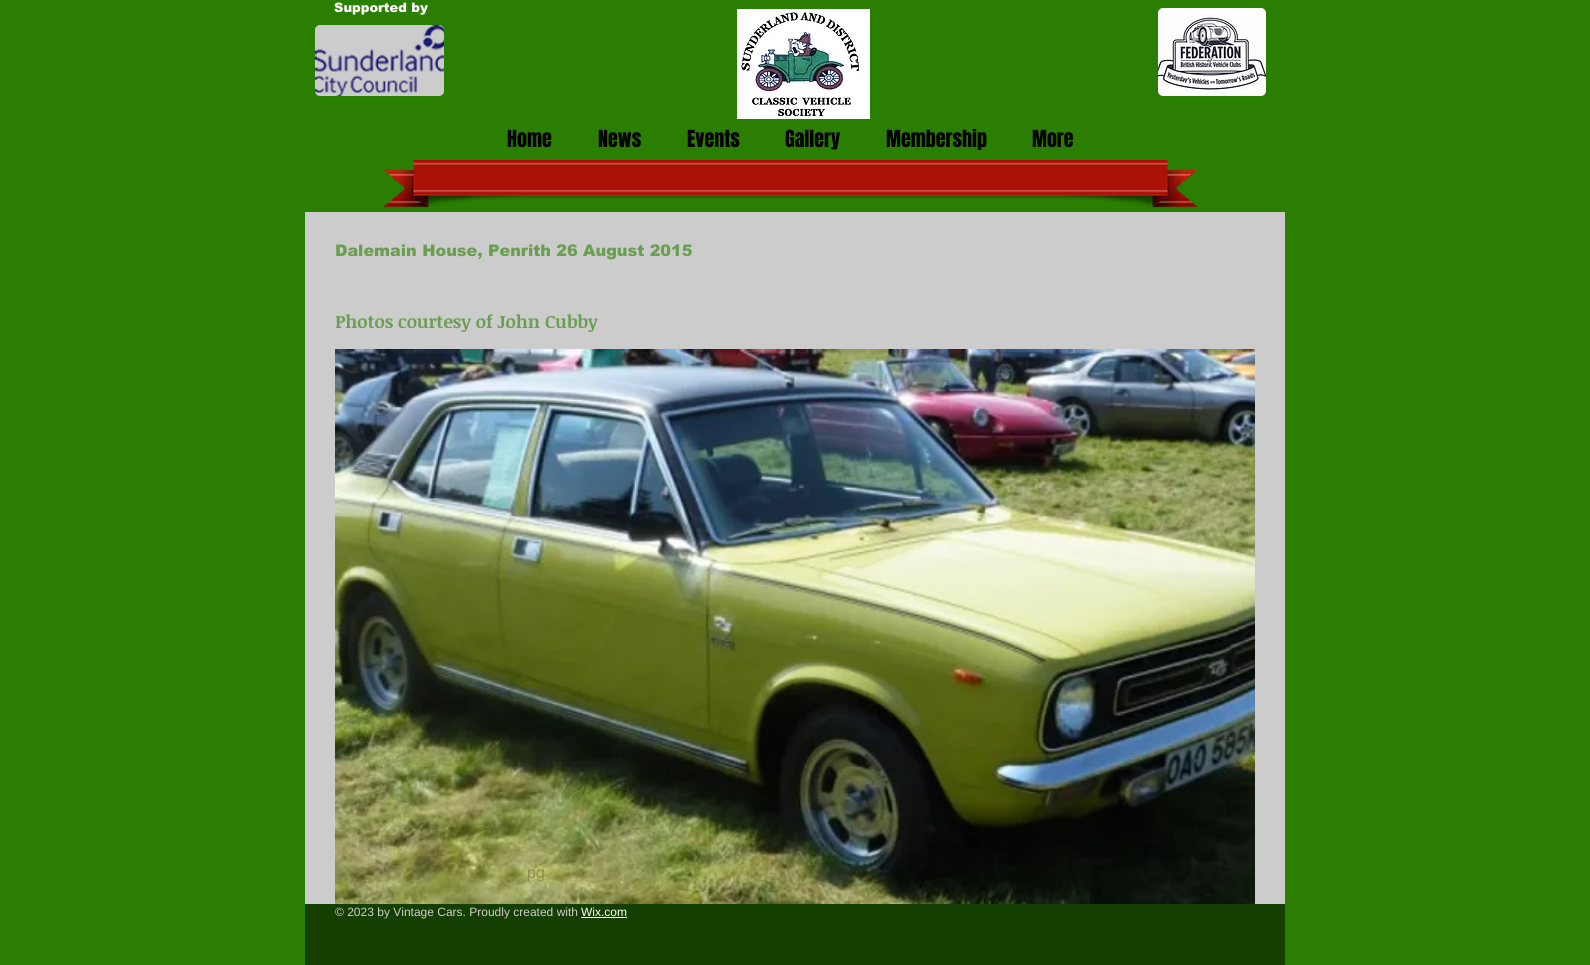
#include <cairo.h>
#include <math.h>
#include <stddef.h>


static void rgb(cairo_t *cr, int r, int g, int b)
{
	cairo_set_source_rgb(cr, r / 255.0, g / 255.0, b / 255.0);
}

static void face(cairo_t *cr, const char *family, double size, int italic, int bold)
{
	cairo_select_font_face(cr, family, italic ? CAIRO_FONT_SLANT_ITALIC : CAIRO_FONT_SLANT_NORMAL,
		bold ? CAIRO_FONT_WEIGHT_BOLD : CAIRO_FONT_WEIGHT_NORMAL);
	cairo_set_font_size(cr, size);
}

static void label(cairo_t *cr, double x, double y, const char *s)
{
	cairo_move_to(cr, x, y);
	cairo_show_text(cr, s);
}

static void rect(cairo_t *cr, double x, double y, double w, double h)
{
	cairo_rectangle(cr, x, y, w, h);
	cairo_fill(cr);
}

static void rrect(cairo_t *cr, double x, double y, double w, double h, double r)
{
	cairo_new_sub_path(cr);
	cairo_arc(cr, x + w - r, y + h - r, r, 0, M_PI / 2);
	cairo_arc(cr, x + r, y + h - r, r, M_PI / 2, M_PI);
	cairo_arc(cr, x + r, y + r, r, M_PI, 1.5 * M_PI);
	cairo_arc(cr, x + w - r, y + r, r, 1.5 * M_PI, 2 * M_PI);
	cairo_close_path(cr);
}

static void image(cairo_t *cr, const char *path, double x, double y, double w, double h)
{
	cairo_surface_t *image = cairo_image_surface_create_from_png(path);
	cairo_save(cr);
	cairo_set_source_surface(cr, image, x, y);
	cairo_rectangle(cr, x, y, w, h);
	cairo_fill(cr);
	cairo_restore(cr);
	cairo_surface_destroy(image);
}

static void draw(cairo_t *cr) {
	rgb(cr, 42, 127, 2);
	cairo_paint(cr);
	face(cr, "arial Black", 13, 0, 0);
	rgb(cr, 255, 255, 255);
	label(cr, 334, 12, "Supported by");
	image(cr, "image0.png", 737, 9, 133, 110);
	rgb(cr, 204, 204, 204);
	rrect(cr, 1158, 8, 108, 88, 5);
	cairo_fill(cr);
	image(cr, "image1.png", 1158, 8, 108, 88);
	rrect(cr, 315, 25, 129, 71, 5);
	cairo_fill(cr);
	image(cr, "image2.png", 315, 25, 129, 71);
	face(cr, "Anton", 20, 0, 0);
	rgb(cr, 0, 0, 0);
	label(cr, 507, 147, "Home");
	label(cr, 598, 147, "News");
	label(cr, 687, 147, "Events");
	label(cr, 785, 147, "Gallery");
	label(cr, 886, 147, "Membership");
	label(cr, 1032, 147, "More");
	image(cr, "image3.png", 384, 160, 813, 48);
	rgb(cr, 204, 204, 204);
	rect(cr, 305, 212, 980, 692);
	face(cr, "arial Black", 16, 0, 0);
	rgb(cr, 106, 159, 81);
	label(cr, 335, 256, "Dalemain House, Penrith 26 August 2015");
	face(cr, "Noticia Text", 18, 0, 1);
	label(cr, 335, 328, "Photos courtesy of John Cubby");
	image(cr, "image4.png", 335, 349, 920, 555);
	face(cr, "Liberation Sans", 16, 0, 0);
	rgb(cr, 140, 144, 74);
	label(cr, 527, 878, "pg");
	rgb(cr, 21, 63, 1);
	rect(cr, 305, 904, 980, 61);
	face(cr, "Liberation Sans", 12, 0, 0);
	rgb(cr, 204, 204, 204);
	label(cr, 335, 916, "© 2023 by Vintage Cars. Proudly created with");
	rgb(cr, 255, 255, 255);
	label(cr, 581, 916, "Wix.com");
	rect(cr, 581, 917, 46, 1);
}

int main(void) {
	cairo_surface_t *surface = cairo_image_surface_create(CAIRO_FORMAT_RGB24, 1590, 965);
	cairo_t *cr = cairo_create(surface);
	cairo_font_options_t *options = cairo_font_options_create();
	cairo_font_options_set_hint_metrics(options, CAIRO_HINT_METRICS_OFF);
	cairo_font_options_set_hint_style(options, CAIRO_HINT_STYLE_NONE);
	cairo_set_font_options(cr, options);
	cairo_set_miter_limit(cr, 4);
	draw(cr);
	cairo_surface_write_to_png(surface, "render.png");
	cairo_font_options_destroy(options);
	cairo_destroy(cr);
	cairo_surface_destroy(surface);
	return 0;
}
